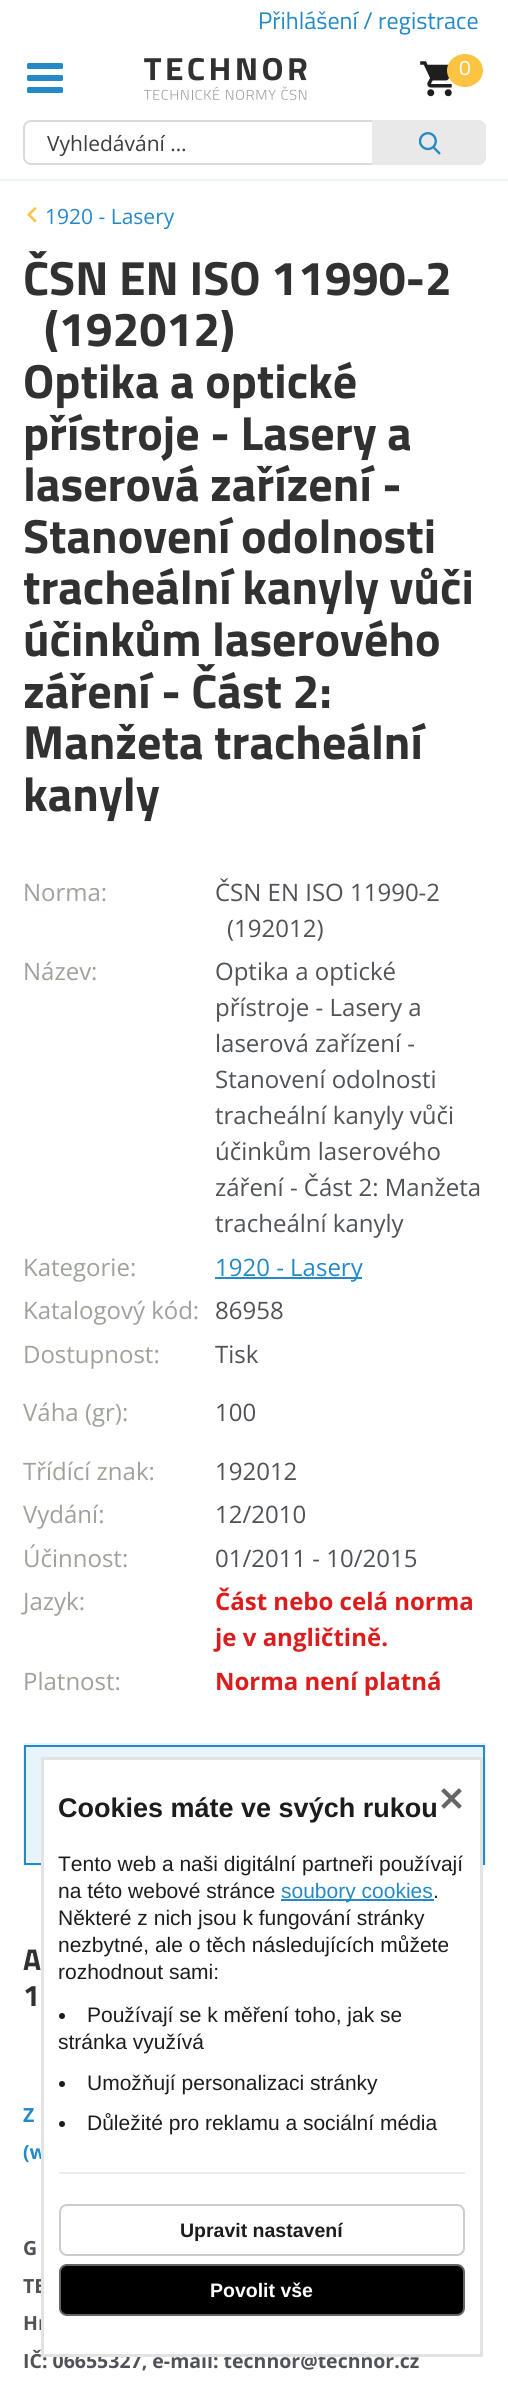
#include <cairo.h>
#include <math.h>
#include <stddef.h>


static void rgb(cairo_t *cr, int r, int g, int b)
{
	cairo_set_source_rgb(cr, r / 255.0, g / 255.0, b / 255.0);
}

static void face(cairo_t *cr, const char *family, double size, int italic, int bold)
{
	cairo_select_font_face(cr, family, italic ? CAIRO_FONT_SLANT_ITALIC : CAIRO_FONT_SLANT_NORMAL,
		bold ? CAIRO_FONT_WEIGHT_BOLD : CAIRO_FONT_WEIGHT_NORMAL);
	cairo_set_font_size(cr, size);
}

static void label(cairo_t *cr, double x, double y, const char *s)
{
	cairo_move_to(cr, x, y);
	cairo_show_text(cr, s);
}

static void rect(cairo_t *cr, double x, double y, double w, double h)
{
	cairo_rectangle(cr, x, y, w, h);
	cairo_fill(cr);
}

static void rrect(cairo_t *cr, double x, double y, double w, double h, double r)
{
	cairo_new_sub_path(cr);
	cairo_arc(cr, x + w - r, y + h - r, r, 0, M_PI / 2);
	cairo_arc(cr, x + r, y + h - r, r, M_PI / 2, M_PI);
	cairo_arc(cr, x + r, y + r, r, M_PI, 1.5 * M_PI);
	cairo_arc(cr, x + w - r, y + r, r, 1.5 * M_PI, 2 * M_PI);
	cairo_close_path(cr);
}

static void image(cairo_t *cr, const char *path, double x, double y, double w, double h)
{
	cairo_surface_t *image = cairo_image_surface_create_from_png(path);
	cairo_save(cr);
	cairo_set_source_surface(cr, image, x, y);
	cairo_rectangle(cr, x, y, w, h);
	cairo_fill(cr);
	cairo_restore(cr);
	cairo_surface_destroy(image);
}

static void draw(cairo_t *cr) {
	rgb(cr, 255, 255, 255);
	cairo_paint(cr);
	rgb(cr, 232, 244, 251);
	rect(cr, 0, 179, 508, 2);
	face(cr, "Titillium Web", 24, 0, 0);
	rgb(cr, 35, 137, 199);
	label(cr, 258, 29, "Přihlášení / registrace");
	image(cr, "image0.png", 27, 63, 36, 30);
	image(cr, "image1.png", 143, 57, 164, 43);
	image(cr, "image2.png", 420, 61, 32, 36);
	rgb(cr, 253, 195, 66);
	cairo_new_path(cr);
	cairo_move_to(cr, 465, 54);
	cairo_curve_to(cr, 475, 54, 483, 61.5, 483, 70.5);
	cairo_curve_to(cr, 483, 79.5, 475, 87, 465, 87);
	cairo_curve_to(cr, 455, 87, 447, 79.5, 447, 70.5);
	cairo_curve_to(cr, 447, 61.5, 455, 54, 465, 54);
	cairo_close_path(cr);
	cairo_fill(cr);
	face(cr, "Titillium Web", 21, 0, 0);
	rgb(cr, 255, 255, 255);
	label(cr, 459, 75, "0");
	rrect(cr, 24, 121, 461, 43, 7);
	rgb(cr, 218, 218, 218);
	cairo_stroke(cr);
	face(cr, "Open Sans", 21, 0, 0);
	rgb(cr, 61, 61, 61);
	label(cr, 47, 151, "Vyhledávání …");
	rgb(cr, 233, 233, 233);
	cairo_new_path(cr);
	cairo_move_to(cr, 372, 120);
	cairo_line_to(cr, 478, 120);
	cairo_curve_to(cr, 482.5, 120, 486, 123.5, 486, 128);
	cairo_line_to(cr, 486, 157);
	cairo_curve_to(cr, 486, 161.5, 482.5, 165, 478, 165);
	cairo_line_to(cr, 372, 165);
	cairo_close_path(cr);
	cairo_fill(cr);
	image(cr, "image3.png", 419, 132, 22, 23);
	image(cr, "image4.png", 27, 206, 10, 17);
	rgb(cr, 35, 137, 199);
	label(cr, 45, 224, "1920 - Lasery");
	face(cr, "Titillium Web", 48, 0, 1);
	rgb(cr, 49, 49, 49);
	label(cr, 23, 295, "ČSN EN ISO 11990-2");
	label(cr, 44, 346, "(192012)");
	label(cr, 23, 398, "Optika a optické");
	label(cr, 23, 450, "přístroje - Lasery a");
	label(cr, 23, 501, "laserová zařízení -");
	label(cr, 23, 553, "Stanovení odolnosti");
	label(cr, 23, 604, "tracheální kanyly vůči");
	label(cr, 23, 656, "účinkům laserového");
	label(cr, 23, 708, "záření - Část 2:");
	label(cr, 23, 759, "Manžeta tracheální");
	label(cr, 23, 811, "kanyly");
	face(cr, "Open Sans", 24, 0, 0);
	rgb(cr, 158, 163, 154);
	label(cr, 23, 901, "Norma:");
	rgb(cr, 79, 83, 88);
	label(cr, 215, 901, "ČSN EN ISO 11990-2");
	label(cr, 227, 937, "(192012)");
	rgb(cr, 158, 163, 154);
	label(cr, 23, 980, "Název:");
	rgb(cr, 79, 83, 88);
	label(cr, 215, 980, "Optika a optické");
	label(cr, 215, 1016, "přístroje - Lasery a");
	label(cr, 215, 1052, "laserová zařízení -");
	label(cr, 215, 1088, "Stanovení odolnosti");
	label(cr, 215, 1124, "tracheální kanyly vůči");
	label(cr, 215, 1160, "účinkům laserového");
	label(cr, 215, 1196, "záření - Část 2: Manžeta");
	label(cr, 215, 1232, "tracheální kanyly");
	rgb(cr, 158, 163, 154);
	label(cr, 23, 1276, "Kategorie:");
	rgb(cr, 35, 137, 199);
	rect(cr, 215, 1277, 147, 2);
	label(cr, 215, 1276, "1920 - Lasery");
	rgb(cr, 158, 163, 154);
	label(cr, 23, 1319, "Katalogový kód:");
	rgb(cr, 79, 83, 88);
	label(cr, 215, 1319, "86958");
	rgb(cr, 158, 163, 154);
	label(cr, 23, 1363, "Dostupnost:");
	rgb(cr, 79, 83, 88);
	label(cr, 215, 1363, "Tisk");
	rgb(cr, 158, 163, 154);
	label(cr, 23, 1421, "Váha (gr):");
	rgb(cr, 79, 83, 88);
	label(cr, 215, 1421, "100");
	rgb(cr, 158, 163, 154);
	label(cr, 23, 1480, "Třídící znak:");
	rgb(cr, 79, 83, 88);
	label(cr, 215, 1480, "192012");
	rgb(cr, 158, 163, 154);
	label(cr, 23, 1523, "Vydání:");
	rgb(cr, 79, 83, 88);
	label(cr, 215, 1523, "12/2010");
	rgb(cr, 158, 163, 154);
	label(cr, 23, 1567, "Účinnost:");
	rgb(cr, 79, 83, 88);
	label(cr, 215, 1567, "01/2011 - 10/2015");
	rgb(cr, 158, 163, 154);
	label(cr, 23, 1610, "Jazyk:");
	face(cr, "Open Sans", 24, 0, 1);
	rgb(cr, 220, 29, 29);
	label(cr, 215, 1610, "Část nebo celá norma");
	label(cr, 215, 1646, "je v angličtině.");
	face(cr, "Open Sans", 24, 0, 0);
	rgb(cr, 158, 163, 154);
	label(cr, 23, 1690, "Platnost:");
	face(cr, "Open Sans", 24, 0, 1);
	rgb(cr, 220, 29, 29);
	label(cr, 215, 1690, "Norma není platná");
	cairo_rectangle(cr, 24, 1744, 461, 121);
	rgb(cr, 232, 244, 251);
	cairo_stroke(cr);
	cairo_rectangle(cr, 25, 1746, 459, 118);
	cairo_fill_preserve(cr);
	rgb(cr, 35, 137, 199);
	cairo_stroke(cr);
	face(cr, "Titillium Web", 30, 0, 1);
	rgb(cr, 49, 49, 49);
	label(cr, 23, 1970, "A");
	label(cr, 23, 2006, "1");
	face(cr, "Open Sans", 19.5, 0, 1);
	rgb(cr, 35, 137, 199);
	label(cr, 23, 2122, "Z");
	label(cr, 23, 2159, "(w");
	rgb(cr, 79, 83, 88);
	label(cr, 23, 2255, "G");
	label(cr, 23, 2293, "TE");
	label(cr, 23, 2330, "Hr");
	label(cr, 23, 2368, "IČ: 06655327, e-mail: technor@technor.cz");
	rgb(cr, 255, 255, 255);
	cairo_rectangle(cr, 42.5, 1758.5, 439, 597);
	cairo_fill_preserve(cr);
	rgb(cr, 227, 227, 227);
	cairo_set_line_width(cr, 3);
	cairo_stroke(cr);
	image(cr, "image5.png", 441, 1788, 21, 21);
	face(cr, "Liberation Sans", 27, 0, 1);
	rgb(cr, 28, 28, 28);
	label(cr, 58, 1817, "Cookies máte ve svých rukou");
	face(cr, "Liberation Sans", 21, 0, 0);
	label(cr, 58, 1871, "Tento web a naši digitální partneři používají");
	label(cr, 58, 1898, "na této webové stránce");
	rgb(cr, 35, 137, 199);
	rect(cr, 281, 1899, 153, 2);
	label(cr, 281, 1898, "soubory cookies");
	rgb(cr, 28, 28, 28);
	label(cr, 433, 1898, ".");
	label(cr, 58, 1925, "Některé z nich jsou k fungování stránky");
	label(cr, 58, 1952, "nezbytné, ale o těch následujících můžete");
	label(cr, 58, 1979, "rozhodnout sami:");
	rgb(cr, 28, 27, 27);
	cairo_new_path(cr);
	cairo_arc(cr, 62, 2016, 3, 0, 2 * M_PI);
	cairo_fill(cr);
	rgb(cr, 28, 28, 28);
	label(cr, 87, 2022, "Používají se k měření toho, jak se");
	label(cr, 58, 2049, "stránka využívá");
	rgb(cr, 28, 27, 27);
	cairo_new_path(cr);
	cairo_arc(cr, 62, 2084, 3, 0, 2 * M_PI);
	cairo_fill(cr);
	rgb(cr, 28, 28, 28);
	label(cr, 87, 2090, "Umožňují personalizaci stránky");
	rgb(cr, 28, 27, 27);
	cairo_new_path(cr);
	cairo_arc(cr, 62, 2124, 3, 0, 2 * M_PI);
	cairo_fill(cr);
	rgb(cr, 28, 28, 28);
	label(cr, 87, 2130, "Důležité pro reklamu a sociální média");
	rgb(cr, 237, 237, 237);
	rect(cr, 59, 2172, 406, 2);
	rrect(cr, 60, 2205, 404, 50, 7);
	rgb(cr, 204, 204, 204);
	cairo_set_line_width(cr, 2);
	cairo_stroke(cr);
	face(cr, "Liberation Sans", 19.5, 0, 1);
	rgb(cr, 28, 28, 28);
	label(cr, 180, 2237, "Upravit nastavení");
	rgb(cr, 0, 0, 0);
	rrect(cr, 60, 2265, 404, 50, 7);
	cairo_fill_preserve(cr);
	rgb(cr, 101, 101, 101);
	cairo_stroke(cr);
	rgb(cr, 255, 255, 255);
	label(cr, 210, 2297, "Povolit vše");
}

int main(void) {
	cairo_surface_t *surface = cairo_image_surface_create(CAIRO_FORMAT_RGB24, 508, 2386);
	cairo_t *cr = cairo_create(surface);
	cairo_font_options_t *options = cairo_font_options_create();
	cairo_font_options_set_hint_metrics(options, CAIRO_HINT_METRICS_OFF);
	cairo_font_options_set_hint_style(options, CAIRO_HINT_STYLE_NONE);
	cairo_set_font_options(cr, options);
	cairo_set_miter_limit(cr, 4);
	draw(cr);
	cairo_surface_write_to_png(surface, "render.png");
	cairo_font_options_destroy(options);
	cairo_destroy(cr);
	cairo_surface_destroy(surface);
	return 0;
}
